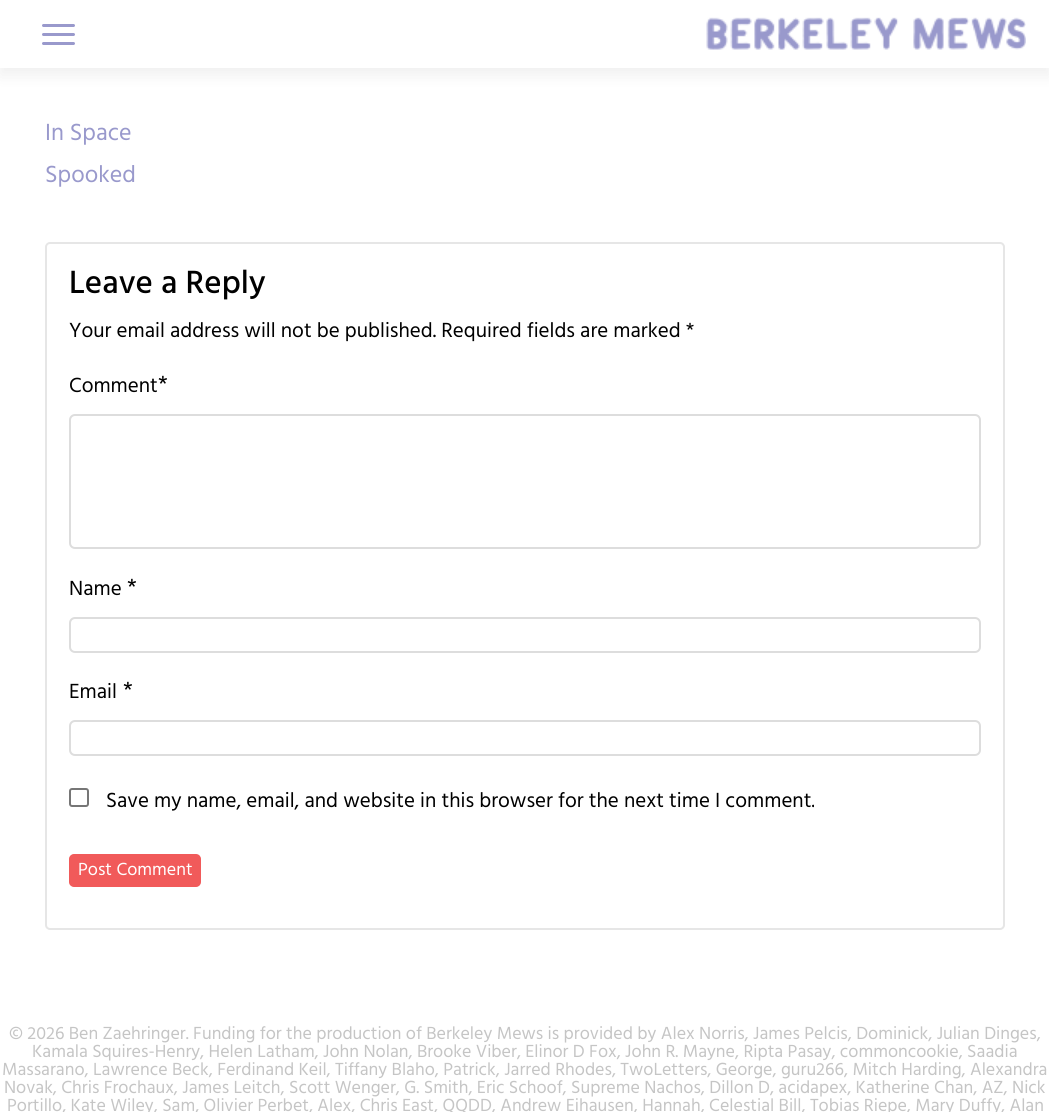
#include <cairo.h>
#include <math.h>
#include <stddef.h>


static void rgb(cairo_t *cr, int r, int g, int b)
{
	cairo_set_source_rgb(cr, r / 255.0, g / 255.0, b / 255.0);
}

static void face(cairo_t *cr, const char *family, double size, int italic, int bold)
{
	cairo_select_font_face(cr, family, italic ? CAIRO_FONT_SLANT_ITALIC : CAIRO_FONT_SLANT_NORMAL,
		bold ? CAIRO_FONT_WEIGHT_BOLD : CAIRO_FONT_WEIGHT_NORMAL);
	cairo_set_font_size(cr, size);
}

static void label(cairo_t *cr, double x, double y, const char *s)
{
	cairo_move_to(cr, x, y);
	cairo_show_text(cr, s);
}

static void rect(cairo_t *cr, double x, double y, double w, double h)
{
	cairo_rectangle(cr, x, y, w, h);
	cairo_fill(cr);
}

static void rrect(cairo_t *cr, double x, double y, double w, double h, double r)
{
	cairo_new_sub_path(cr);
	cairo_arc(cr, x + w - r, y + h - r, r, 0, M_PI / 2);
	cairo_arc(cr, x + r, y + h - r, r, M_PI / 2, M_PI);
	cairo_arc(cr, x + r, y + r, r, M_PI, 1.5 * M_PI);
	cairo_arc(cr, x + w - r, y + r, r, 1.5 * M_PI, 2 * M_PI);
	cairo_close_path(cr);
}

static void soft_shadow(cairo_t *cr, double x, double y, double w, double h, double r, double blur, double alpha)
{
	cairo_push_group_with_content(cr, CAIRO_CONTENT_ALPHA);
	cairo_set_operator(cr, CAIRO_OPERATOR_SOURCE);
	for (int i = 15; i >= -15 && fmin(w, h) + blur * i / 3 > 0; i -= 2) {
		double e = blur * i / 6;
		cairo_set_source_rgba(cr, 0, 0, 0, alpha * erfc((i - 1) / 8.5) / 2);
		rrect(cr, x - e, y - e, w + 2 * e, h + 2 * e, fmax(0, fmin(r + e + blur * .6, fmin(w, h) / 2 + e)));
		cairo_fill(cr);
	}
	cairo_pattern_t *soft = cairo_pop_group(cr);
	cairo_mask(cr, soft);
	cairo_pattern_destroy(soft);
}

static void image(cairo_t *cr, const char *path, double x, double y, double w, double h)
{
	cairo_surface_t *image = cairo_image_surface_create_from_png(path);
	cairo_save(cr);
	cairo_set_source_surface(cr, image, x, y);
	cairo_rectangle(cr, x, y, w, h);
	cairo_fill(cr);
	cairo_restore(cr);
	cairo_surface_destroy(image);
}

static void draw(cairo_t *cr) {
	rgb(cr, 255, 255, 255);
	cairo_paint(cr);
	rgb(cr, 50, 50, 50);
	soft_shadow(cr, 0, 8, 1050, 67, 0, 8, 0.08);
	rgb(cr, 255, 255, 255);
	rect(cr, 0, 0, 1049, 68);
	rgb(cr, 153, 153, 204);
	rrect(cr, 42, 24, 33, 3, 1.5);
	cairo_fill(cr);
	rrect(cr, 42, 33, 33, 3, 1.5);
	cairo_fill(cr);
	rrect(cr, 42, 42, 33, 3, 1.5);
	cairo_fill(cr);
	image(cr, "image0.png", 706, 17, 320, 33);
	face(cr, "Hind", 24, 0, 0);
	label(cr, 45, 140, "In Space");
	label(cr, 45, 182, "Spooked");
	rrect(cr, 46, 243, 958, 686, 4);
	rgb(cr, 230, 230, 230);
	cairo_stroke(cr);
	face(cr, "Hind Medium", 33, 0, 0);
	rgb(cr, 0, 0, 0);
	label(cr, 69, 293, "Leave a Reply");
	face(cr, "Hind", 21, 0, 0);
	label(cr, 69, 337, "Your email address will not be published. Required fields are marked *");
	label(cr, 69, 392, "Comment");
	face(cr, "Hind", 24, 0, 0);
	label(cr, 158, 392, "*");
	rrect(cr, 70, 415, 910, 133, 5);
	rgb(cr, 221, 221, 221);
	cairo_stroke(cr);
	face(cr, "Hind", 21, 0, 0);
	rgb(cr, 0, 0, 0);
	label(cr, 69, 595, "Name");
	face(cr, "Hind", 24, 0, 0);
	label(cr, 127, 595, "*");
	rrect(cr, 70, 618, 910, 34, 5);
	rgb(cr, 221, 221, 221);
	cairo_stroke(cr);
	face(cr, "Hind", 21, 0, 0);
	rgb(cr, 0, 0, 0);
	label(cr, 69, 698, "Email");
	face(cr, "Hind", 24, 0, 0);
	label(cr, 123, 698, "*");
	rrect(cr, 70, 721, 910, 34, 5);
	rgb(cr, 221, 221, 221);
	cairo_stroke(cr);
	rrect(cr, 70, 789, 18, 17, 2);
	rgb(cr, 118, 118, 118);
	cairo_stroke(cr);
	face(cr, "Hind", 21, 0, 0);
	rgb(cr, 0, 0, 0);
	label(cr, 106, 807, "Save my name, email, and website in this browser for the next time I comment.");
	rgb(cr, 241, 90, 90);
	rrect(cr, 70, 855, 130, 31, 4);
	cairo_fill_preserve(cr);
	cairo_stroke(cr);
	face(cr, "Hind", 18, 0, 0);
	rgb(cr, 255, 255, 255);
	label(cr, 78, 875, "Post Comment");
	rgb(cr, 197, 197, 197);
	label(cr, 9, 1039, "© 2026 Ben Zaehringer. Funding for the production of Berkeley Mews is provided by Alex Norris, James Pelcis, Dominick, Julian Dinges,");
	label(cr, 32, 1057, "Kamala Squires-Henry, Helen Latham, John Nolan, Brooke Viber, Elinor D Fox, John R. Mayne, Ripta Pasay, commoncookie, Saadia");
	label(cr, 2, 1075, "Massarano, Lawrence Beck, Ferdinand Keil, Tiffany Blaho, Patrick, Jarred Rhodes, TwoLetters, George, guru266, Mitch Harding, Alexandra");
	label(cr, 4, 1093, "Novak, Chris Frochaux, James Leitch, Scott Wenger, G. Smith, Eric Schoof, Supreme Nachos, Dillon D, acidapex, Katherine Chan, AZ, Nick");
	label(cr, 7, 1111, "Portillo, Kate Wiley, Sam, Olivier Perbet, Alex, Chris East, QQDD, Andrew Eihausen, Hannah, Celestial Bill, Tobias Riepe, Mary Duffy, Alan");
}

int main(void) {
	cairo_surface_t *surface = cairo_image_surface_create(CAIRO_FORMAT_RGB24, 1049, 1112);
	cairo_t *cr = cairo_create(surface);
	cairo_font_options_t *options = cairo_font_options_create();
	cairo_font_options_set_hint_metrics(options, CAIRO_HINT_METRICS_OFF);
	cairo_font_options_set_hint_style(options, CAIRO_HINT_STYLE_NONE);
	cairo_set_font_options(cr, options);
	cairo_set_miter_limit(cr, 4);
	draw(cr);
	cairo_surface_write_to_png(surface, "render.png");
	cairo_font_options_destroy(options);
	cairo_destroy(cr);
	cairo_surface_destroy(surface);
	return 0;
}
